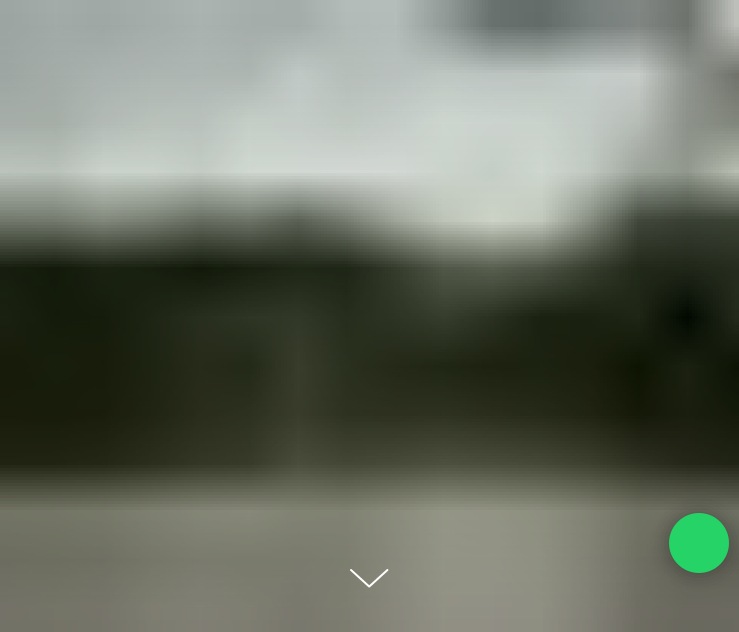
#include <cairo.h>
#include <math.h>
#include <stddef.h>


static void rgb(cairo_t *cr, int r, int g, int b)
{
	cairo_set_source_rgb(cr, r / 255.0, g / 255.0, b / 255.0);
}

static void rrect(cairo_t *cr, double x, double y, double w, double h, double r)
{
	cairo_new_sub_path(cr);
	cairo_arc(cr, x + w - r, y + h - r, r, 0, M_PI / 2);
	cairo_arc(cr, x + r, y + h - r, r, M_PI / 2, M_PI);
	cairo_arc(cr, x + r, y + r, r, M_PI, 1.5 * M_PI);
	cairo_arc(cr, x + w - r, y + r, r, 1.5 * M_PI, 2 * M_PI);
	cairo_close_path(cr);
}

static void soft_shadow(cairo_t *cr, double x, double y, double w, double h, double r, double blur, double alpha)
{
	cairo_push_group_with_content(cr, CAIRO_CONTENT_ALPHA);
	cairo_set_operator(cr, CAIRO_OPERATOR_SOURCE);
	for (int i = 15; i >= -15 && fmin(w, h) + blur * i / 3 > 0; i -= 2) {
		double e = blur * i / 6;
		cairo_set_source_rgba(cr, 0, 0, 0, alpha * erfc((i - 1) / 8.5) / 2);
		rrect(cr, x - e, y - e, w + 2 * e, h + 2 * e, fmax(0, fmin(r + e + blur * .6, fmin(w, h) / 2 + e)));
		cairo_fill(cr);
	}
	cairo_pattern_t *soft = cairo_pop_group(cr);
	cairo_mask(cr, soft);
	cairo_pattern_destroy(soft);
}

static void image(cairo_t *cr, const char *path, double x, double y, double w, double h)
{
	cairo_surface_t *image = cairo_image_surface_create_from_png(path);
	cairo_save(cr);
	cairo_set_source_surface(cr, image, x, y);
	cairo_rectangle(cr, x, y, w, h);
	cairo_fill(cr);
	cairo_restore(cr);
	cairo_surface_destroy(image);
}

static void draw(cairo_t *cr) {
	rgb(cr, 255, 255, 255);
	cairo_paint(cr);
	image(cr, "image0.png", 0, 0, 739, 632);
	image(cr, "image1.png", 350, 569, 39, 19);
	rgb(cr, 0, 0, 0);
	soft_shadow(cr, 669, 513, 60, 60, 30, 10, 0.3);
	rgb(cr, 37, 211, 102);
	cairo_arc(cr, 699, 543, 30, 0, 2 * M_PI);
	cairo_fill(cr);
}

int main(void) {
	cairo_surface_t *surface = cairo_image_surface_create(CAIRO_FORMAT_RGB24, 739, 632);
	cairo_t *cr = cairo_create(surface);
	cairo_font_options_t *options = cairo_font_options_create();
	cairo_font_options_set_hint_metrics(options, CAIRO_HINT_METRICS_OFF);
	cairo_font_options_set_hint_style(options, CAIRO_HINT_STYLE_NONE);
	cairo_set_font_options(cr, options);
	cairo_set_miter_limit(cr, 4);
	draw(cr);
	cairo_surface_write_to_png(surface, "render.png");
	cairo_font_options_destroy(options);
	cairo_destroy(cr);
	cairo_surface_destroy(surface);
	return 0;
}
